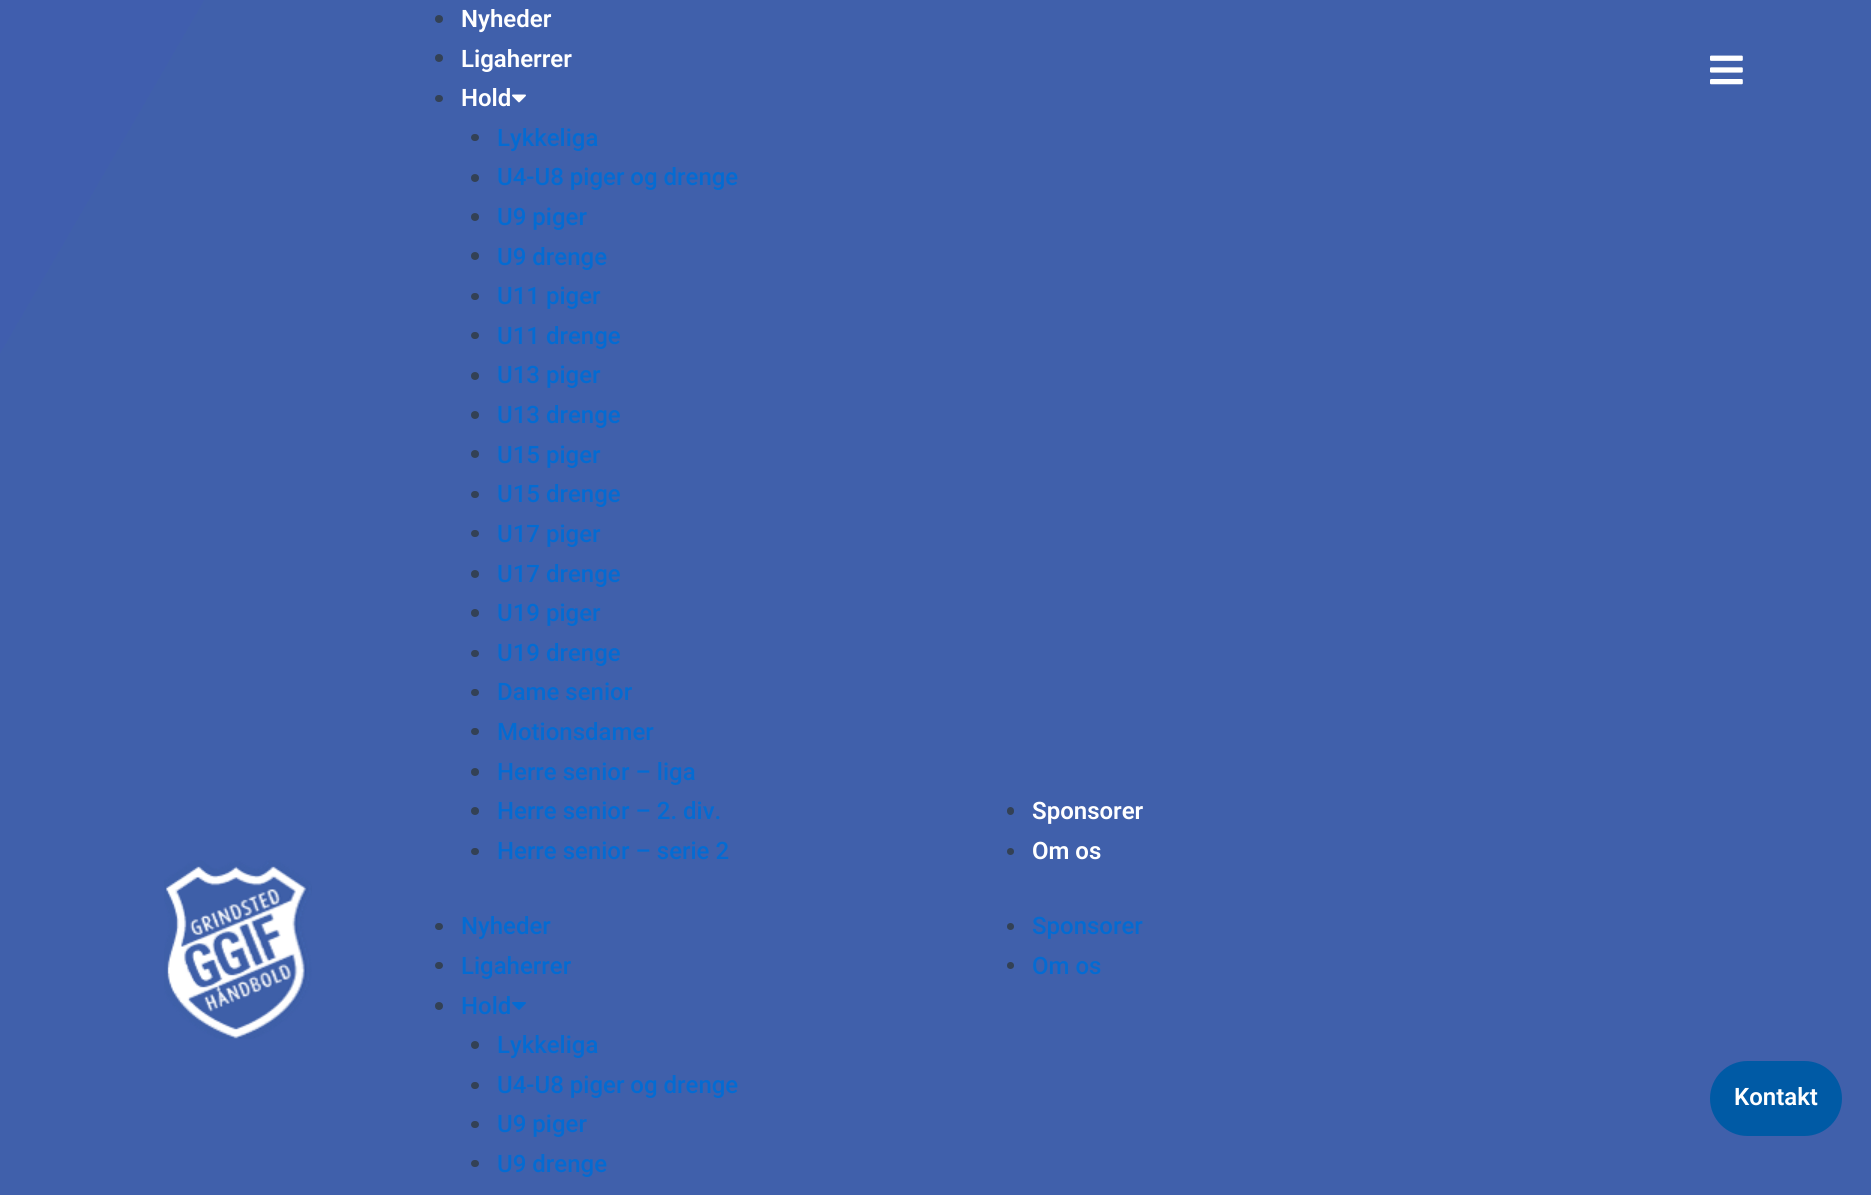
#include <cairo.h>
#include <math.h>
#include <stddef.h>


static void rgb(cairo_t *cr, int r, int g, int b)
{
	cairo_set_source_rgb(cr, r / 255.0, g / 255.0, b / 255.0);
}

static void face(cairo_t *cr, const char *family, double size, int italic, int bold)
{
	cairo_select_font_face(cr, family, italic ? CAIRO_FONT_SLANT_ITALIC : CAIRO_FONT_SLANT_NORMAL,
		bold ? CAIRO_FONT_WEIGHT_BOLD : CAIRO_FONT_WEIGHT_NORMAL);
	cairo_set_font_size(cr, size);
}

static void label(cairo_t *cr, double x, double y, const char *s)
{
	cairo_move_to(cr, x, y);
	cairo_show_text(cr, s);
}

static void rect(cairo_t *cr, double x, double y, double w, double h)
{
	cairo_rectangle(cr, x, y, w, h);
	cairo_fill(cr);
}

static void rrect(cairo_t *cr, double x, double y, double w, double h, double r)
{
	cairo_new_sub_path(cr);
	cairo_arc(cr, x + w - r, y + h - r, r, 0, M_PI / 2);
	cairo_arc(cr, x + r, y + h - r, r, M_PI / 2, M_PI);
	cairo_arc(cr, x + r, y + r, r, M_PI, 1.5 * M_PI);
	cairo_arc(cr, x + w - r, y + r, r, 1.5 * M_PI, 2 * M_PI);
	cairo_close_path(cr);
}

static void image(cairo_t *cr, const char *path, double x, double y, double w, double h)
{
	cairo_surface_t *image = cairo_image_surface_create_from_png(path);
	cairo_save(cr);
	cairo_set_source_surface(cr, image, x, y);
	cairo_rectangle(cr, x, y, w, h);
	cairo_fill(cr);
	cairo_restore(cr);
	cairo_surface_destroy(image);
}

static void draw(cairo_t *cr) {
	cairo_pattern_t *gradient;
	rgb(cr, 255, 255, 255);
	cairo_paint(cr);
	gradient = cairo_pattern_create_linear(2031, 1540, -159, 275);
	cairo_pattern_add_color_stop_rgba(gradient, 0.93, 0.251, 0.376, 0.671, 1);
	cairo_pattern_add_color_stop_rgba(gradient, 0.93, 0.251, 0.369, 0.682, 1);
	cairo_set_source(cr, gradient);
	cairo_pattern_destroy(gradient);
	rect(cr, 0, 0, 1871, 1195);
	rgb(cr, 51, 65, 85);
	cairo_arc(cr, 439, 19, 4, 0, 2 * M_PI);
	cairo_fill(cr);
	face(cr, "Roboto SemiBold", 24, 0, 0);
	rgb(cr, 255, 255, 255);
	label(cr, 461, 27, "Nyheder");
	rgb(cr, 51, 65, 85);
	cairo_new_path(cr);
	cairo_arc(cr, 439, 58, 4, 0, 2 * M_PI);
	cairo_fill(cr);
	rgb(cr, 255, 255, 255);
	label(cr, 461, 67, "Ligaherrer");
	rgb(cr, 51, 65, 85);
	rrect(cr, 435, 95, 8, 7, 3.5);
	cairo_fill(cr);
	rgb(cr, 255, 255, 255);
	label(cr, 461, 106, "Hold");
	image(cr, "image0.png", 512, 94, 14, 9);
	rgb(cr, 51, 65, 85);
	rrect(cr, 471, 134, 8, 7, 3.5);
	cairo_fill(cr);
	face(cr, "Roboto Medium", 24, 0, 0);
	rgb(cr, 4, 107, 210);
	label(cr, 497, 146, "Lykkeliga");
	rgb(cr, 51, 65, 85);
	cairo_new_path(cr);
	cairo_arc(cr, 475, 178, 4, 0, 2 * M_PI);
	cairo_fill(cr);
	rgb(cr, 4, 107, 210);
	label(cr, 497, 185, "U4-U8 piger og drenge");
	rgb(cr, 51, 65, 85);
	cairo_new_path(cr);
	cairo_arc(cr, 475, 217, 4, 0, 2 * M_PI);
	cairo_fill(cr);
	rgb(cr, 4, 107, 210);
	label(cr, 497, 225, "U9 piger");
	rgb(cr, 51, 65, 85);
	cairo_new_path(cr);
	cairo_arc(cr, 475, 256, 4, 0, 2 * M_PI);
	cairo_fill(cr);
	rgb(cr, 4, 107, 210);
	label(cr, 497, 265, "U9 drenge");
	rgb(cr, 51, 65, 85);
	rrect(cr, 471, 293, 8, 7, 3.5);
	cairo_fill(cr);
	rgb(cr, 4, 107, 210);
	label(cr, 497, 304, "U11 piger");
	rgb(cr, 51, 65, 85);
	rrect(cr, 471, 332, 8, 7, 3.5);
	cairo_fill(cr);
	rgb(cr, 4, 107, 210);
	label(cr, 497, 344, "U11 drenge");
	rgb(cr, 51, 65, 85);
	cairo_new_path(cr);
	cairo_arc(cr, 475, 376, 4, 0, 2 * M_PI);
	cairo_fill(cr);
	rgb(cr, 4, 107, 210);
	label(cr, 497, 383, "U13 piger");
	rgb(cr, 51, 65, 85);
	cairo_new_path(cr);
	cairo_arc(cr, 475, 415, 4, 0, 2 * M_PI);
	cairo_fill(cr);
	rgb(cr, 4, 107, 210);
	label(cr, 497, 423, "U13 drenge");
	rgb(cr, 51, 65, 85);
	cairo_new_path(cr);
	cairo_arc(cr, 475, 454, 4, 0, 2 * M_PI);
	cairo_fill(cr);
	rgb(cr, 4, 107, 210);
	label(cr, 497, 463, "U15 piger");
	rgb(cr, 51, 65, 85);
	rrect(cr, 471, 491, 8, 7, 3.5);
	cairo_fill(cr);
	rgb(cr, 4, 107, 210);
	label(cr, 497, 502, "U15 drenge");
	rgb(cr, 51, 65, 85);
	rrect(cr, 471, 530, 8, 7, 3.5);
	cairo_fill(cr);
	rgb(cr, 4, 107, 210);
	label(cr, 497, 542, "U17 piger");
	rgb(cr, 51, 65, 85);
	cairo_new_path(cr);
	cairo_arc(cr, 475, 574, 4, 0, 2 * M_PI);
	cairo_fill(cr);
	rgb(cr, 4, 107, 210);
	label(cr, 497, 582, "U17 drenge");
	rgb(cr, 51, 65, 85);
	cairo_new_path(cr);
	cairo_arc(cr, 475, 613, 4, 0, 2 * M_PI);
	cairo_fill(cr);
	rgb(cr, 4, 107, 210);
	label(cr, 497, 621, "U19 piger");
	rgb(cr, 51, 65, 85);
	rrect(cr, 471, 650, 8, 7, 3.5);
	cairo_fill(cr);
	rgb(cr, 4, 107, 210);
	label(cr, 497, 661, "U19 drenge");
	rgb(cr, 51, 65, 85);
	rrect(cr, 471, 689, 8, 7, 3.5);
	cairo_fill(cr);
	rgb(cr, 4, 107, 210);
	label(cr, 497, 700, "Dame senior");
	rgb(cr, 51, 65, 85);
	rrect(cr, 471, 728, 8, 7, 3.5);
	cairo_fill(cr);
	rgb(cr, 4, 107, 210);
	label(cr, 497, 740, "Motionsdamer");
	rgb(cr, 51, 65, 85);
	cairo_new_path(cr);
	cairo_arc(cr, 475, 772, 4, 0, 2 * M_PI);
	cairo_fill(cr);
	rgb(cr, 4, 107, 210);
	label(cr, 497, 780, "Herre senior – liga");
	rgb(cr, 51, 65, 85);
	cairo_new_path(cr);
	cairo_arc(cr, 475, 811, 4, 0, 2 * M_PI);
	cairo_fill(cr);
	rgb(cr, 4, 107, 210);
	label(cr, 497, 819, "Herre senior – 2. div.");
	rgb(cr, 51, 65, 85);
	rrect(cr, 471, 848, 8, 7, 3.5);
	cairo_fill(cr);
	rgb(cr, 4, 107, 210);
	label(cr, 497, 859, "Herre senior – serie 2");
	rgb(cr, 51, 65, 85);
	rrect(cr, 435, 923, 8, 7, 3.5);
	cairo_fill(cr);
	rgb(cr, 4, 107, 210);
	label(cr, 461, 934, "Nyheder");
	rgb(cr, 51, 65, 85);
	rrect(cr, 435, 962, 8, 7, 3.5);
	cairo_fill(cr);
	rgb(cr, 4, 107, 210);
	label(cr, 461, 974, "Ligaherrer");
	rgb(cr, 51, 65, 85);
	cairo_new_path(cr);
	cairo_arc(cr, 439, 1006, 4, 0, 2 * M_PI);
	cairo_fill(cr);
	rgb(cr, 4, 107, 210);
	label(cr, 461, 1014, "Hold");
	image(cr, "image1.png", 512, 1002, 14, 8);
	rgb(cr, 51, 65, 85);
	cairo_arc(cr, 475, 1045, 4, 0, 2 * M_PI);
	cairo_fill(cr);
	rgb(cr, 4, 107, 210);
	label(cr, 497, 1053, "Lykkeliga");
	rgb(cr, 51, 65, 85);
	rrect(cr, 471, 1082, 8, 7, 3.5);
	cairo_fill(cr);
	rgb(cr, 4, 107, 210);
	label(cr, 497, 1093, "U4-U8 piger og drenge");
	rgb(cr, 51, 65, 85);
	rrect(cr, 471, 1121, 8, 7, 3.5);
	cairo_fill(cr);
	rgb(cr, 4, 107, 210);
	label(cr, 497, 1132, "U9 piger");
	rgb(cr, 51, 65, 85);
	rrect(cr, 471, 1160, 8, 7, 3.5);
	cairo_fill(cr);
	rgb(cr, 4, 107, 210);
	label(cr, 497, 1172, "U9 drenge");
	image(cr, "image2.png", 1710, 55, 33, 30);
	image(cr, "image3.png", 164, 860, 148, 179);
	rgb(cr, 51, 65, 85);
	rrect(cr, 1007, 807, 7, 8, 3.5);
	cairo_fill(cr);
	face(cr, "Roboto SemiBold", 24, 0, 0);
	rgb(cr, 255, 255, 255);
	label(cr, 1032, 819, "Sponsorer");
	rgb(cr, 51, 65, 85);
	cairo_new_path(cr);
	cairo_arc(cr, 1010.5, 851.5, 3.5, 0, 2 * M_PI);
	cairo_fill(cr);
	rgb(cr, 255, 255, 255);
	label(cr, 1032, 859, "Om os");
	rgb(cr, 51, 65, 85);
	cairo_new_path(cr);
	cairo_arc(cr, 1010.5, 926.5, 3.5, 0, 2 * M_PI);
	cairo_fill(cr);
	face(cr, "Roboto Medium", 24, 0, 0);
	rgb(cr, 4, 107, 210);
	label(cr, 1032, 934, "Sponsorer");
	rgb(cr, 51, 65, 85);
	cairo_new_path(cr);
	cairo_arc(cr, 1010.5, 965.5, 3.5, 0, 2 * M_PI);
	cairo_fill(cr);
	rgb(cr, 4, 107, 210);
	label(cr, 1032, 974, "Om os");
	rgb(cr, 0, 90, 165);
	rrect(cr, 1710, 1061, 132, 75, 37.5);
	cairo_fill(cr);
	face(cr, "Roboto SemiBold", 24, 0, 0);
	rgb(cr, 255, 255, 255);
	label(cr, 1734, 1105, "Kontakt");
}

int main(void) {
	cairo_surface_t *surface = cairo_image_surface_create(CAIRO_FORMAT_RGB24, 1871, 1195);
	cairo_t *cr = cairo_create(surface);
	cairo_font_options_t *options = cairo_font_options_create();
	cairo_font_options_set_hint_metrics(options, CAIRO_HINT_METRICS_OFF);
	cairo_font_options_set_hint_style(options, CAIRO_HINT_STYLE_NONE);
	cairo_set_font_options(cr, options);
	cairo_set_miter_limit(cr, 4);
	draw(cr);
	cairo_surface_write_to_png(surface, "render.png");
	cairo_font_options_destroy(options);
	cairo_destroy(cr);
	cairo_surface_destroy(surface);
	return 0;
}
